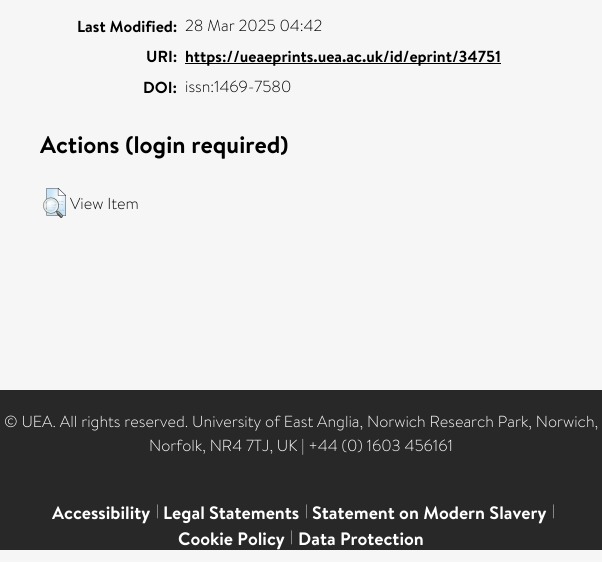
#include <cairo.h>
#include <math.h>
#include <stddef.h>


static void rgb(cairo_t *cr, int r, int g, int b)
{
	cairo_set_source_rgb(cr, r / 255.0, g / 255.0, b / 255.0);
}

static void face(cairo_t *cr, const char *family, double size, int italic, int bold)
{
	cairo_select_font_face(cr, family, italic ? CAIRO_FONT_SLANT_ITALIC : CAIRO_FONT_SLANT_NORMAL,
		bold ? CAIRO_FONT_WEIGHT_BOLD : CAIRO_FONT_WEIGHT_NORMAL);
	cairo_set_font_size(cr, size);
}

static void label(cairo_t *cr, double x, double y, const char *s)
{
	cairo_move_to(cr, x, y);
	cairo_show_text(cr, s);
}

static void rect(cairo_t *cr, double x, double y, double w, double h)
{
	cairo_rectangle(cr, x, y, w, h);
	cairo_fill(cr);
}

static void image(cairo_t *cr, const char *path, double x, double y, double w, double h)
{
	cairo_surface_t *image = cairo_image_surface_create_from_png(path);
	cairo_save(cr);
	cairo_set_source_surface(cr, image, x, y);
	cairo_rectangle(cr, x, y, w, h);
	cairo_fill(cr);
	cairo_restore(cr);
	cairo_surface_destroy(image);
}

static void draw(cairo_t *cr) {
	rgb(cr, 246, 246, 246);
	cairo_paint(cr);
	face(cr, "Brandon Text", 16, 0, 1);
	rgb(cr, 0, 0, 0);
	label(cr, 77, 32, "Last Modified:");
	face(cr, "Brandon Text Light", 16, 0, 0);
	label(cr, 185, 31, "28 Mar 2025 04:42");
	face(cr, "Brandon Text", 16, 0, 1);
	label(cr, 146, 62, "URI:");
	rect(cr, 185, 63, 316, 1);
	label(cr, 185, 62, "https://ueaeprints.uea.ac.uk/id/eprint/34751");
	label(cr, 143, 93, "DOI:");
	face(cr, "Brandon Text Light", 16, 0, 0);
	label(cr, 185, 92, "issn:1469-7580");
	face(cr, "Brandon Text", 24, 0, 1);
	label(cr, 40, 153, "Actions (login required)");
	image(cr, "image0.png", 43, 188, 23, 30);
	face(cr, "Brandon Text Light", 16, 0, 0);
	label(cr, 70, 209, "View Item");
	rgb(cr, 40, 40, 40);
	rect(cr, 0, 390, 602, 160);
	rgb(cr, 255, 255, 255);
	label(cr, 4, 427, "© UEA. All rights reserved. University of East Anglia, Norwich Research Park, Norwich,");
	label(cr, 149, 451, "Norfolk, NR4 7TJ, UK | +44 (0) 1603 456161");
	face(cr, "Brandon Text", 18, 0, 1);
	label(cr, 52, 519, "Accessibility");
	face(cr, "Brandon Text Light", 14, 0, 0);
	label(cr, 156, 515, "|");
	face(cr, "Brandon Text", 18, 0, 1);
	label(cr, 163, 519, "Legal Statements");
	face(cr, "Brandon Text Light", 14, 0, 0);
	label(cr, 305, 515, "|");
	face(cr, "Brandon Text", 18, 0, 1);
	label(cr, 312, 519, "Statement on Modern Slavery");
	face(cr, "Brandon Text Light", 14, 0, 0);
	label(cr, 552, 515, "|");
	face(cr, "Brandon Text", 18, 0, 1);
	label(cr, 178, 545, "Cookie Policy");
	face(cr, "Brandon Text Light", 14, 0, 0);
	label(cr, 290, 541, "|");
	face(cr, "Brandon Text", 18, 0, 1);
	label(cr, 298, 545, "Data Protection");
}

int main(void) {
	cairo_surface_t *surface = cairo_image_surface_create(CAIRO_FORMAT_RGB24, 602, 562);
	cairo_t *cr = cairo_create(surface);
	cairo_font_options_t *options = cairo_font_options_create();
	cairo_font_options_set_hint_metrics(options, CAIRO_HINT_METRICS_OFF);
	cairo_font_options_set_hint_style(options, CAIRO_HINT_STYLE_NONE);
	cairo_set_font_options(cr, options);
	cairo_set_miter_limit(cr, 4);
	draw(cr);
	cairo_surface_write_to_png(surface, "render.png");
	cairo_font_options_destroy(options);
	cairo_destroy(cr);
	cairo_surface_destroy(surface);
	return 0;
}
